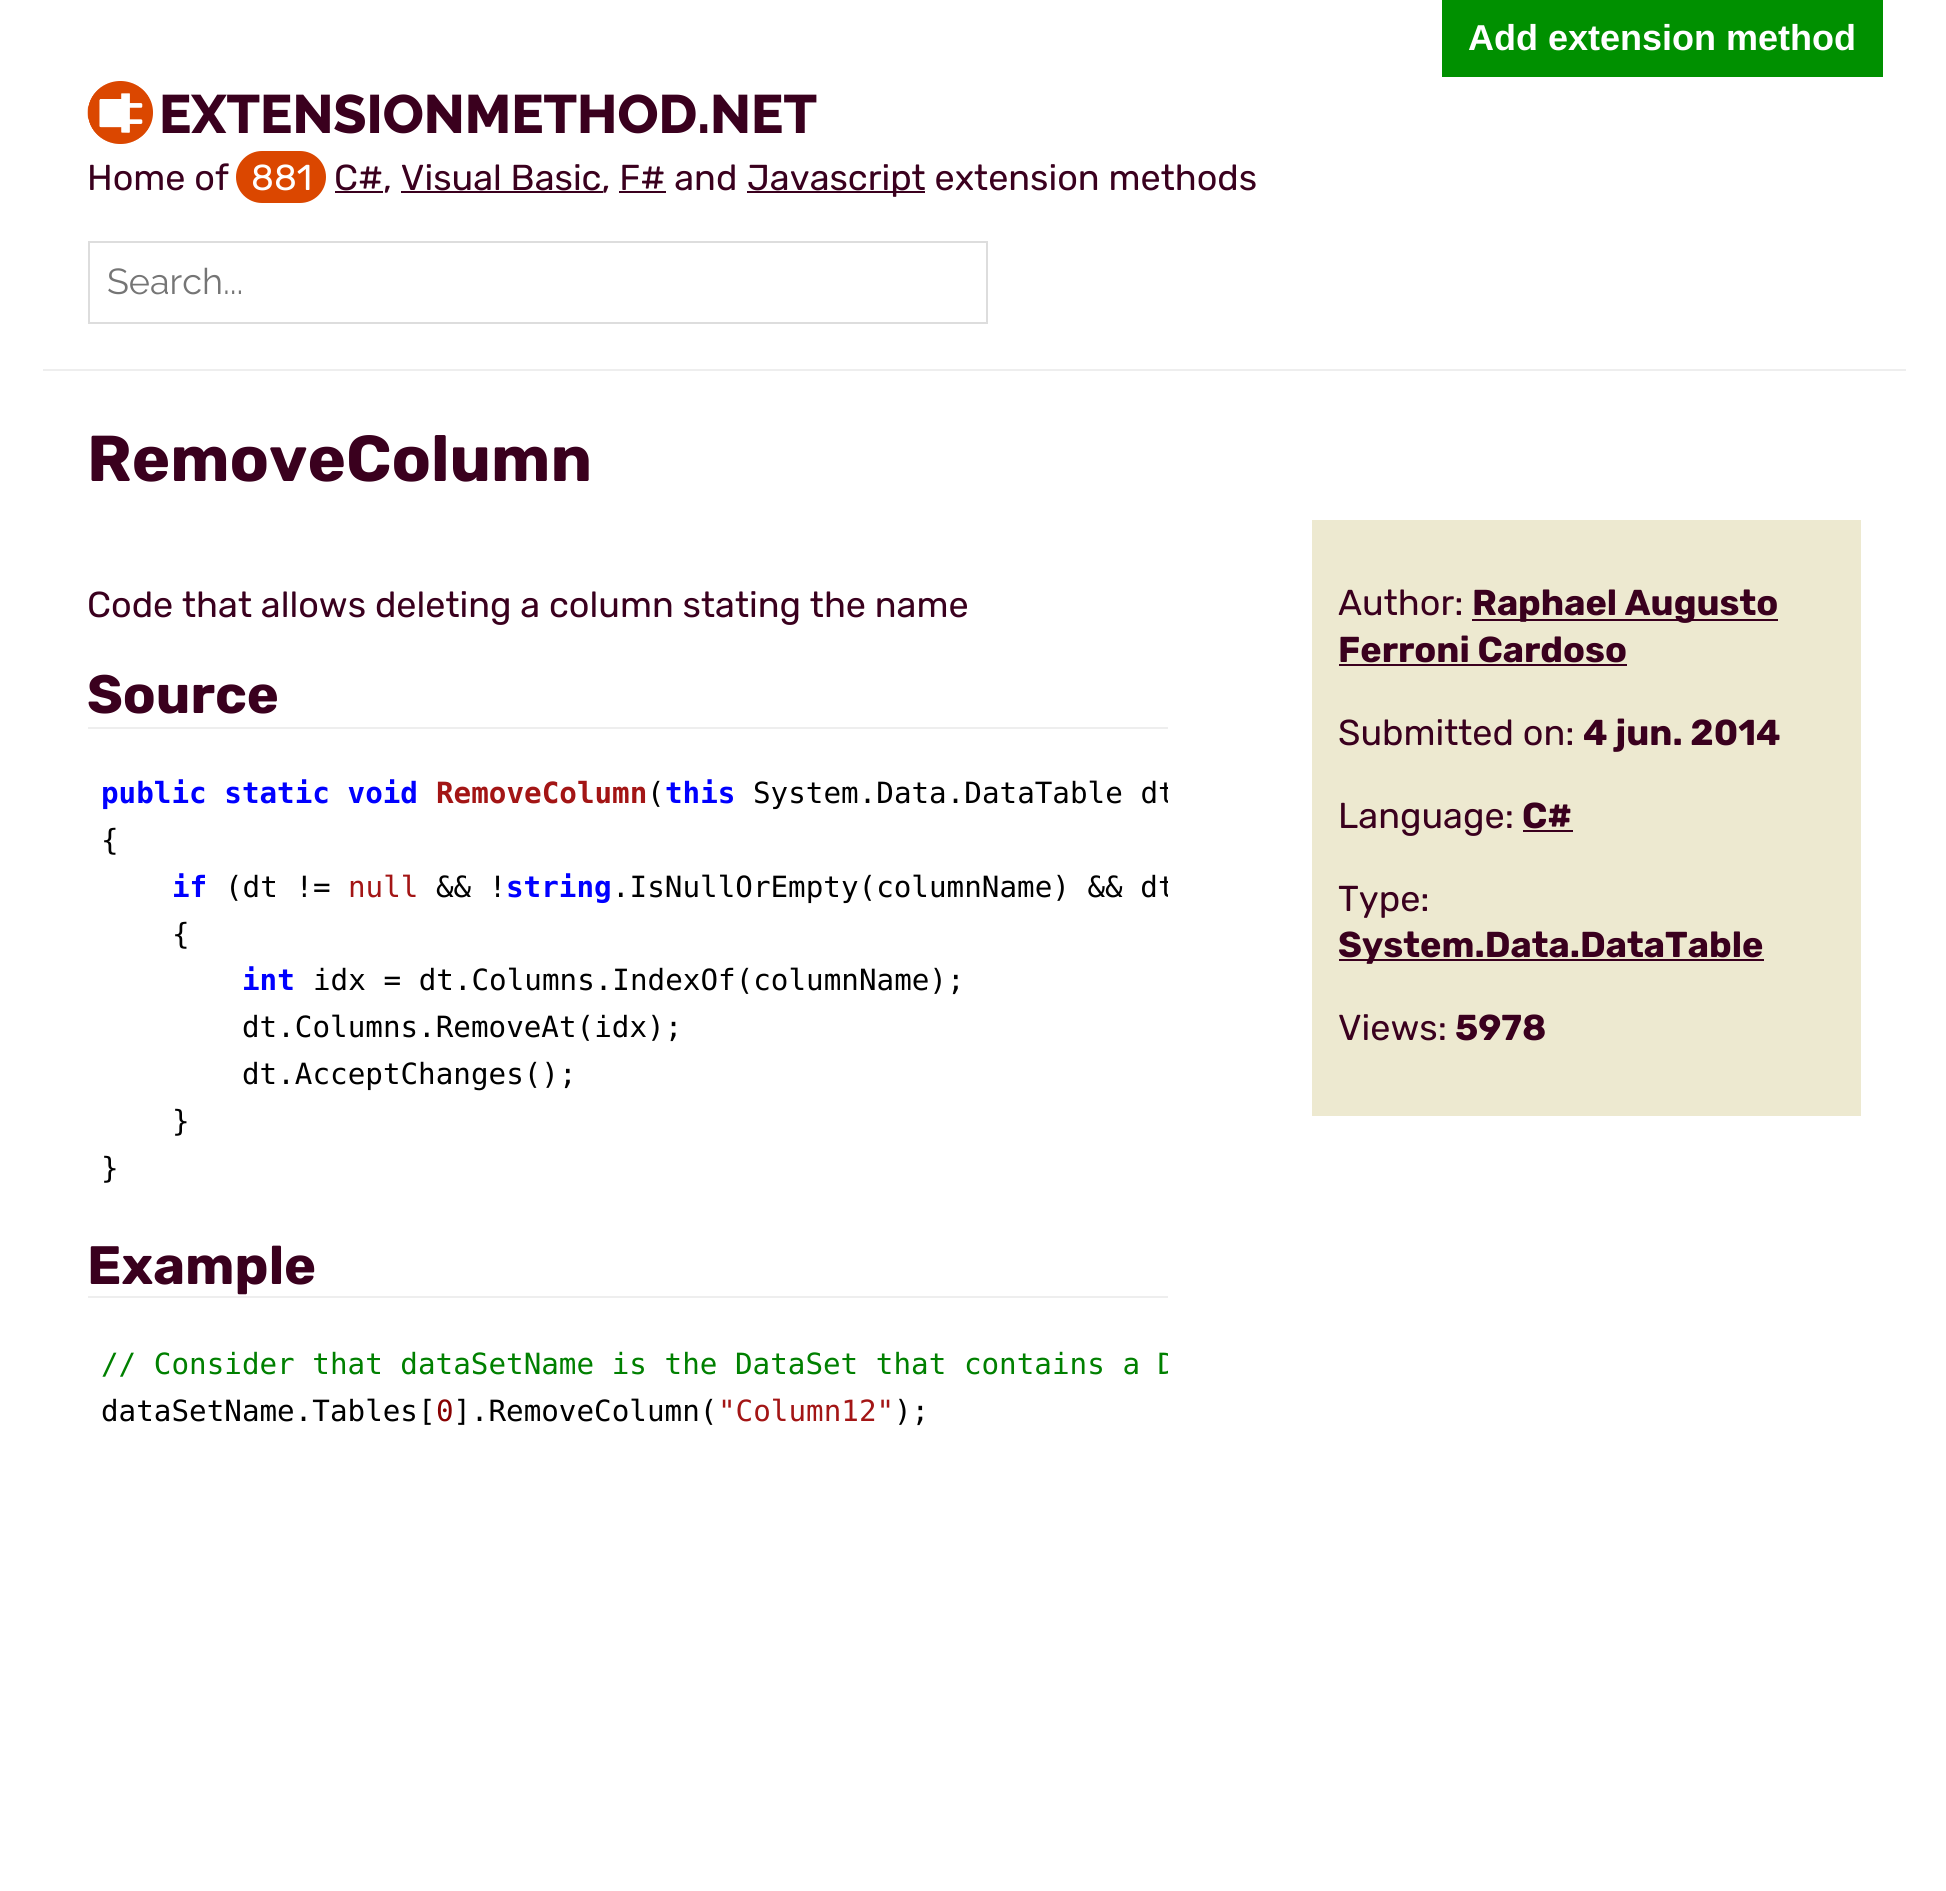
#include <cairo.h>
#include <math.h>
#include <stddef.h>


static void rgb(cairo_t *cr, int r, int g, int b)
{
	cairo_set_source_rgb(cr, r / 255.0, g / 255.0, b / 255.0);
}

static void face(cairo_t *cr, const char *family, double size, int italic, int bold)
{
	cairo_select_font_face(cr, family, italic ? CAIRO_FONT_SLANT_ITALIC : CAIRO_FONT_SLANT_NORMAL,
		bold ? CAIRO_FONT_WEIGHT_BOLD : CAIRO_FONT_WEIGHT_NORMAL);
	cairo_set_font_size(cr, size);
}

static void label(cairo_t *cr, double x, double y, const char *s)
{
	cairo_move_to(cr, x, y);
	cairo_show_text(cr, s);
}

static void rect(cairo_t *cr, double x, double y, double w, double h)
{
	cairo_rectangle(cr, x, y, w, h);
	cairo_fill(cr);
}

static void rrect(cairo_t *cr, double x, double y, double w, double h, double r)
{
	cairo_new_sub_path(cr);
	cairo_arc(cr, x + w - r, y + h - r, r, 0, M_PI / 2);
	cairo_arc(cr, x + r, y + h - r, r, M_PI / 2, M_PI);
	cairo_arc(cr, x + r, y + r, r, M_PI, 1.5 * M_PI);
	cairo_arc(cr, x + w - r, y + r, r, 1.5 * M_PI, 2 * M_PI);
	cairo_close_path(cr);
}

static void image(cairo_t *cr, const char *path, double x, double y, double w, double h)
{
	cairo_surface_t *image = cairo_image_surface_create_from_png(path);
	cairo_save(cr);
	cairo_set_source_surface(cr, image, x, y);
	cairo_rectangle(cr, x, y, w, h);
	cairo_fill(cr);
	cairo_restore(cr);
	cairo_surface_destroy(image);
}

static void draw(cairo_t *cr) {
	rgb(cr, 255, 255, 255);
	cairo_paint(cr);
	rgb(cr, 238, 238, 238);
	rect(cr, 43, 369, 1863, 2);
	rgb(cr, 0, 144, 0);
	rect(cr, 1442, 0, 441, 77);
	face(cr, "Liberation Sans", 36, 0, 1);
	rgb(cr, 255, 255, 255);
	label(cr, 1468, 50, "Add extension method");
	image(cr, "image0.png", 87, 81, 66, 63);
	face(cr, "Raleway ExtraBold", 54, 0, 0);
	rgb(cr, 58, 0, 30);
	label(cr, 159, 133, "EXTENSIONMETHOD.NET");
	face(cr, "Rubik", 36, 0, 0);
	label(cr, 87, 190, "Home of");
	rgb(cr, 219, 71, 0);
	rrect(cr, 236, 151, 90, 52, 26);
	cairo_fill(cr);
	rgb(cr, 255, 255, 255);
	label(cr, 251, 190, "881");
	rgb(cr, 58, 0, 30);
	rect(cr, 335, 191, 48, 2);
	label(cr, 334, 190, "C#, Visual Basic, F# and");
	rect(cr, 747, 191, 178, 2);
	label(cr, 747, 190, "Javascript extension methods");
	rect(cr, 401, 191, 202, 2);
	rect(cr, 619, 191, 47, 2);
	cairo_rectangle(cr, 89, 242, 898, 81);
	rgb(cr, 221, 221, 221);
	cairo_stroke(cr);
	face(cr, "Raleway", 36, 0, 0);
	rgb(cr, 117, 117, 117);
	label(cr, 107, 294, "Search...");
	face(cr, "Rubik", 64.75, 0, 1);
	rgb(cr, 58, 0, 30);
	label(cr, 87, 481, "RemoveColumn");
	face(cr, "Rubik", 36, 0, 0);
	label(cr, 87, 617, "Code that allows deleting a column stating the name");
	rgb(cr, 238, 238, 238);
	rect(cr, 88, 727, 1080, 2);
	face(cr, "Rubik", 54, 0, 1);
	rgb(cr, 58, 0, 30);
	label(cr, 87, 713, "Source");
	face(cr, "DejaVu Sans Mono", 29.25, 0, 1);
	rgb(cr, 0, 0, 255);
	label(cr, 101, 803, "public static void");
	rgb(cr, 163, 21, 21);
	label(cr, 436, 803, "RemoveColumn");
	face(cr, "DejaVu Sans Mono", 29.25, 0, 0);
	rgb(cr, 0, 0, 0);
	label(cr, 647, 803, "(");
	face(cr, "DejaVu Sans Mono", 29.25, 0, 1);
	rgb(cr, 0, 0, 255);
	label(cr, 665, 803, "this");
	cairo_save(cr);
	cairo_rectangle(cr, 88, 758, 1080, 450);
	cairo_clip(cr);
	face(cr, "DejaVu Sans Mono", 29.25, 0, 0);
	rgb(cr, 0, 0, 0);
	label(cr, 753, 803, "System.Data.DataTable dt");
	cairo_restore(cr);
	face(cr, "DejaVu Sans Mono", 29.25, 0, 0);
	rgb(cr, 0, 0, 0);
	label(cr, 101, 850, "{");
	face(cr, "DejaVu Sans Mono", 29.25, 0, 1);
	rgb(cr, 0, 0, 255);
	label(cr, 172, 897, "if");
	face(cr, "DejaVu Sans Mono", 29.25, 0, 0);
	rgb(cr, 0, 0, 0);
	label(cr, 225, 897, "(dt !=");
	rgb(cr, 163, 21, 21);
	label(cr, 348, 897, "null");
	rgb(cr, 0, 0, 0);
	label(cr, 436, 897, "&& !");
	face(cr, "DejaVu Sans Mono", 29.25, 0, 1);
	rgb(cr, 0, 0, 255);
	label(cr, 506, 897, "string");
	cairo_save(cr);
	cairo_rectangle(cr, 88, 758, 1080, 450);
	cairo_clip(cr);
	face(cr, "DejaVu Sans Mono", 29.25, 0, 0);
	rgb(cr, 0, 0, 0);
	label(cr, 612, 897, ".IsNullOrEmpty(columnName) && dt");
	cairo_restore(cr);
	face(cr, "DejaVu Sans Mono", 29.25, 0, 0);
	rgb(cr, 0, 0, 0);
	label(cr, 172, 944, "{");
	face(cr, "DejaVu Sans Mono", 29.25, 0, 1);
	rgb(cr, 0, 0, 255);
	label(cr, 242, 990, "int");
	face(cr, "DejaVu Sans Mono", 29.25, 0, 0);
	rgb(cr, 0, 0, 0);
	label(cr, 313, 990, "idx = dt.Columns.IndexOf(columnName);");
	label(cr, 242, 1037, "dt.Columns.RemoveAt(idx);");
	label(cr, 242, 1084, "dt.AcceptChanges();");
	label(cr, 172, 1131, "}");
	label(cr, 101, 1178, "}");
	rgb(cr, 238, 238, 238);
	rect(cr, 88, 1296, 1080, 2);
	face(cr, "Rubik", 54, 0, 1);
	rgb(cr, 58, 0, 30);
	label(cr, 87, 1284, "Example");
	cairo_save(cr);
	cairo_rectangle(cr, 88, 1328, 1080, 123);
	cairo_clip(cr);
	face(cr, "DejaVu Sans Mono", 29.25, 0, 0);
	rgb(cr, 0, 128, 0);
	label(cr, 101, 1374, "// Consider that dataSetName is the DataSet that contains a D");
	cairo_restore(cr);
	face(cr, "DejaVu Sans Mono", 29.25, 0, 0);
	rgb(cr, 0, 0, 0);
	label(cr, 101, 1421, "dataSetName.Tables[ ].RemoveColumn(");
	rgb(cr, 163, 21, 21);
	label(cr, 718, 1421, "\"Column12\"");
	rgb(cr, 0, 0, 0);
	label(cr, 894, 1421, ");");
	rgb(cr, 136, 0, 0);
	label(cr, 436, 1421, "0");
	rgb(cr, 237, 233, 208);
	rect(cr, 1312, 520, 549, 596);
	face(cr, "Rubik", 36, 0, 0);
	rgb(cr, 58, 0, 30);
	label(cr, 1338, 615, "Author:");
	rect(cr, 1472, 619, 306, 2);
	face(cr, "Rubik", 36, 0, 1);
	label(cr, 1472, 615, "Raphael Augusto");
	label(cr, 1338, 662, "Ferroni Cardoso");
	rect(cr, 1339, 664, 288, 2);
	face(cr, "Rubik", 36, 0, 0);
	label(cr, 1338, 745, "Submitted on:");
	face(cr, "Rubik", 36, 0, 1);
	label(cr, 1583, 745, "4 jun. 2014");
	face(cr, "Rubik", 36, 0, 0);
	label(cr, 1338, 828, "Language:");
	face(cr, "Rubik", 36, 0, 1);
	label(cr, 1522, 828, "C#");
	rect(cr, 1523, 830, 50, 2);
	face(cr, "Rubik", 36, 0, 0);
	label(cr, 1338, 911, "Type:");
	rect(cr, 1339, 959, 425, 2);
	face(cr, "Rubik", 36, 0, 1);
	label(cr, 1338, 957, "System.Data.DataTable");
	face(cr, "Rubik", 36, 0, 0);
	label(cr, 1338, 1040, "Views:");
	face(cr, "Rubik", 36, 0, 1);
	label(cr, 1455, 1040, "5978");
}

int main(void) {
	cairo_surface_t *surface = cairo_image_surface_create(CAIRO_FORMAT_RGB24, 1946, 1891);
	cairo_t *cr = cairo_create(surface);
	cairo_font_options_t *options = cairo_font_options_create();
	cairo_font_options_set_hint_metrics(options, CAIRO_HINT_METRICS_OFF);
	cairo_font_options_set_hint_style(options, CAIRO_HINT_STYLE_NONE);
	cairo_set_font_options(cr, options);
	cairo_set_miter_limit(cr, 4);
	draw(cr);
	cairo_surface_write_to_png(surface, "render.png");
	cairo_font_options_destroy(options);
	cairo_destroy(cr);
	cairo_surface_destroy(surface);
	return 0;
}
